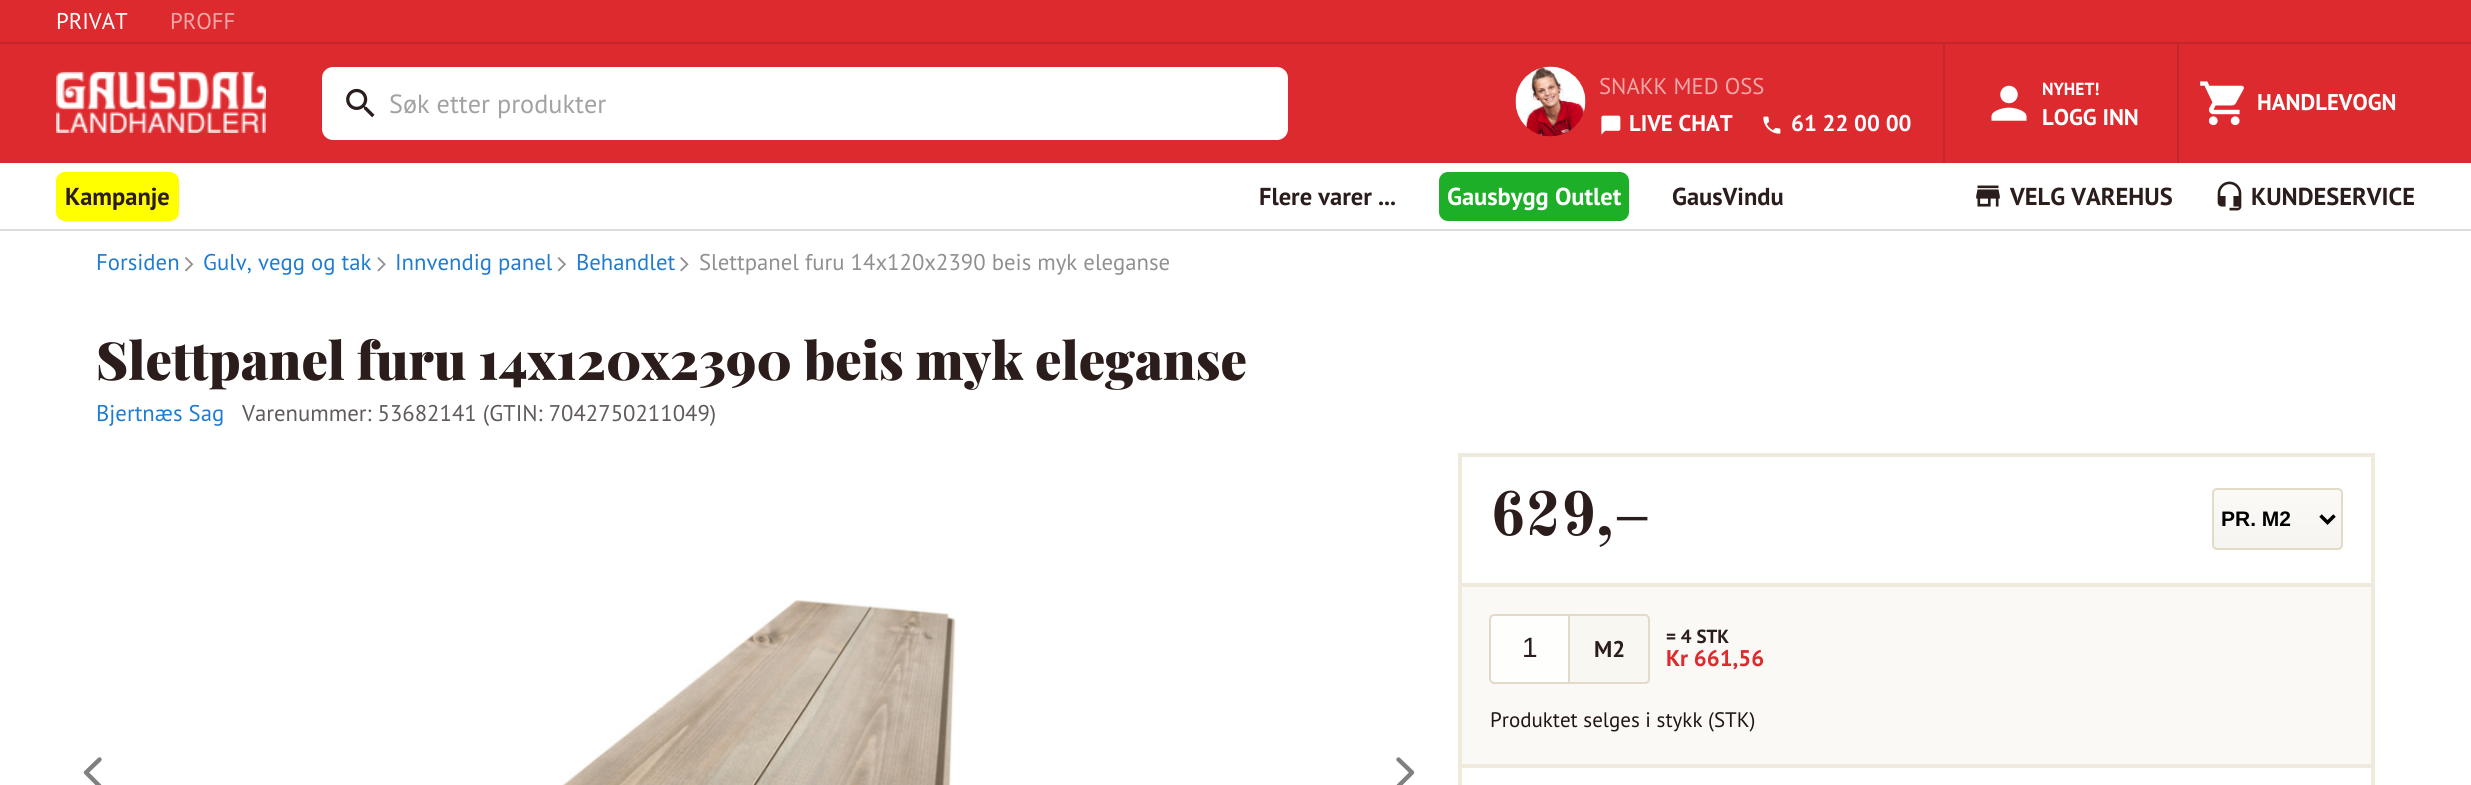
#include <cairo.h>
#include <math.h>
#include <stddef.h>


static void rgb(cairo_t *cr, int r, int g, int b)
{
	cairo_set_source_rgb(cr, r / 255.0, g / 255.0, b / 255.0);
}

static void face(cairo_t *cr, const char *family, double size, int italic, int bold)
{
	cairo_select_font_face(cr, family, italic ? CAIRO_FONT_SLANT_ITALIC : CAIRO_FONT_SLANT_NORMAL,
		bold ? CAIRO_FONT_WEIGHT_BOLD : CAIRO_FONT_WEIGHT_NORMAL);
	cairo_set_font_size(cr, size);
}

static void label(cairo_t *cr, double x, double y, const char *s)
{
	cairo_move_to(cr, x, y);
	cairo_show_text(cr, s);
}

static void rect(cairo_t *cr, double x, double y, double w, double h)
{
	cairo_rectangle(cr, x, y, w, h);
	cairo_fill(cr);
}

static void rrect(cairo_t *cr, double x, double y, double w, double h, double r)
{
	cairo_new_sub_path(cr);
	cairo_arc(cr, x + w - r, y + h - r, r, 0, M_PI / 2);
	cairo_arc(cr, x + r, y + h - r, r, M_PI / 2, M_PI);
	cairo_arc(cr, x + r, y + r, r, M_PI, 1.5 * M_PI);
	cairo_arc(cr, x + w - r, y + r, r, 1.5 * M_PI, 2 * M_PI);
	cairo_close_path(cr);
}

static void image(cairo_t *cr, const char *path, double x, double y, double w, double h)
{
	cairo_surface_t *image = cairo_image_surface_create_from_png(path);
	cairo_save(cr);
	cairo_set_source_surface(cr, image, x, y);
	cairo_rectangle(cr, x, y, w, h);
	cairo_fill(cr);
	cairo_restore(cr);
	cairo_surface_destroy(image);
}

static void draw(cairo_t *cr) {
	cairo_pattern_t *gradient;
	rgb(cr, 221, 42, 46);
	cairo_paint(cr);
	rgb(cr, 196, 39, 43);
	rect(cr, 0, 42, 2471, 2);
	face(cr, "PT Sans", 22.75, 0, 0);
	rgb(cr, 255, 255, 255);
	label(cr, 56, 29, "PRIVAT");
	rgb(cr, 241, 168, 169);
	label(cr, 170, 29, "PROFF");
	image(cr, "image0.png", 56, 71, 210, 62);
	rgb(cr, 255, 255, 255);
	rrect(cr, 322, 67, 966, 73, 11);
	cairo_fill(cr);
	image(cr, "image1.png", 346, 88, 29, 30);
	face(cr, "PT Sans", 26.25, 0, 0);
	rgb(cr, 162, 162, 162);
	label(cr, 389, 113, "Søk etter produkter");
	image(cr, "image2.png", 1515, 66, 71, 71);
	face(cr, "PT Sans", 22.75, 0, 0);
	rgb(cr, 241, 168, 169);
	label(cr, 1599, 94, "SNAKK MED OSS");
	image(cr, "image3.png", 1601, 115, 20, 20);
	face(cr, "PT Sans", 22.75, 0, 1);
	rgb(cr, 255, 255, 255);
	label(cr, 1629, 131, "LIVE CHAT");
	image(cr, "image4.png", 1763, 116, 18, 18);
	label(cr, 1791, 131, "61 22 00 00");
	rgb(cr, 196, 39, 43);
	rect(cr, 2177, 44, 2, 119);
	rect(cr, 1943, 44, 2, 119);
	image(cr, "image5.png", 1991, 85, 36, 36);
	face(cr, "PT Sans", 17.5, 0, 1);
	rgb(cr, 255, 255, 255);
	label(cr, 2042, 95, "NYHET!");
	face(cr, "PT Sans", 22.75, 0, 1);
	label(cr, 2042, 125, "LOGG INN");
	image(cr, "image6.png", 2200, 81, 44, 45);
	label(cr, 2257, 110, "HANDLEVOGN");
	rgb(cr, 222, 220, 217);
	rect(cr, 0, 229, 2471, 2);
	rgb(cr, 255, 255, 255);
	rect(cr, 0, 163, 2471, 66);
	rgb(cr, 255, 255, 0);
	rrect(cr, 56, 172, 123, 49, 9);
	cairo_fill(cr);
	face(cr, "PT Sans", 24.5, 0, 1);
	rgb(cr, 43, 29, 28);
	label(cr, 65, 205, "Kampanje");
	label(cr, 1259, 205, "Flere varer ...");
	rgb(cr, 29, 175, 39);
	rrect(cr, 1439, 172, 190, 49, 9);
	cairo_fill(cr);
	rgb(cr, 255, 255, 255);
	label(cr, 1447, 205, "Gausbygg Outlet");
	rgb(cr, 43, 29, 28);
	label(cr, 1672, 205, "GausVindu");
	image(cr, "image7.png", 1976, 185, 24, 22);
	label(cr, 2010, 205, "VELG VAREHUS");
	image(cr, "image8.png", 2217, 181, 25, 30);
	label(cr, 2251, 205, "KUNDESERVICE");
	rgb(cr, 255, 255, 255);
	rect(cr, 0, 231, 2471, 554);
	face(cr, "PT Sans", 22.75, 0, 0);
	rgb(cr, 32, 124, 208);
	label(cr, 96, 270, "Forsiden");
	image(cr, "image9.png", 184, 257, 10, 15);
	label(cr, 203, 270, "Gulv, vegg og tak");
	image(cr, "image10.png", 377, 257, 9, 15);
	label(cr, 395, 270, "Innvendig panel");
	image(cr, "image11.png", 557, 257, 9, 15);
	label(cr, 576, 270, "Behandlet");
	image(cr, "image12.png", 680, 257, 9, 15);
	rgb(cr, 144, 144, 144);
	label(cr, 699, 270, "Slettpanel furu 14x120x2390 beis myk eleganse");
	face(cr, "Playfair Display Black", 52.5, 0, 0);
	rgb(cr, 43, 29, 28);
	label(cr, 96, 380, "Slettpanel furu 14x120x2390 beis myk eleganse");
	face(cr, "PT Sans", 22.75, 0, 0);
	rgb(cr, 32, 124, 208);
	label(cr, 96, 421, "Bjertnæs Sag");
	rgb(cr, 97, 90, 90);
	label(cr, 242, 421, "Varenummer: 53682141 (GTIN: 7042750211049)");
	cairo_new_path(cr);
	cairo_move_to(cr, 99.5, 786);
	cairo_line_to(cr, 86, 772.5);
	cairo_line_to(cr, 99.5, 759.5);
	rgb(cr, 128, 128, 128);
	cairo_set_line_width(cr, 4.4);
	cairo_set_line_cap(cr, CAIRO_LINE_CAP_ROUND);
	cairo_set_line_join(cr, CAIRO_LINE_JOIN_ROUND);
	cairo_stroke(cr);
	image(cr, "image13.png", 562, 599, 394, 186);
	cairo_new_path(cr);
	cairo_move_to(cr, 1398.5, 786);
	cairo_line_to(cr, 1412, 772.5);
	cairo_line_to(cr, 1398.5, 759.5);
	cairo_stroke(cr);
	rgb(cr, 240, 234, 221);
	rect(cr, 1458, 453, 917, 4);
	rect(cr, 2371, 453, 4, 130);
	rect(cr, 1458, 453, 4, 130);
	face(cr, "Old Standard TT", 61, 0, 1);
	rgb(cr, 43, 29, 28);
	label(cr, 1490, 535, "629,–");
	cairo_save(cr);
	rrect(cr, 2212, 488, 131, 62, 5);
	cairo_clip(cr);
	gradient = cairo_pattern_create_linear(2278, 490, 2278, 548);
	cairo_pattern_add_color_stop_rgba(gradient, 0, 0.984, 0.98, 0.969, 1);
	cairo_pattern_add_color_stop_rgba(gradient, 1, 0.961, 0.957, 0.945, 1);
	cairo_set_source(cr, gradient);
	cairo_pattern_destroy(gradient);
	rect(cr, 2212, 490, 131, 58);
	cairo_restore(cr);
	rrect(cr, 2213, 489, 129, 60, 4);
	rgb(cr, 226, 219, 200);
	cairo_set_line_width(cr, 2);
	cairo_set_line_cap(cr, CAIRO_LINE_CAP_BUTT);
	cairo_set_line_join(cr, CAIRO_LINE_JOIN_MITER);
	cairo_stroke(cr);
	cairo_new_path(cr);
	cairo_move_to(cr, 2320.5, 515.5);
	cairo_line_to(cr, 2327.5, 522.5);
	cairo_line_to(cr, 2334.5, 515.5);
	rgb(cr, 0, 0, 0);
	cairo_set_line_width(cr, 3.5);
	cairo_stroke(cr);
	face(cr, "Liberation Sans", 21, 0, 1);
	label(cr, 2221, 526, "PR. M2");
	rgb(cr, 251, 249, 245);
	cairo_rectangle(cr, 1460, 585, 913, 181);
	cairo_fill_preserve(cr);
	rgb(cr, 240, 234, 221);
	cairo_set_line_width(cr, 4);
	cairo_stroke(cr);
	rgb(cr, 254, 254, 253);
	cairo_new_path(cr);
	cairo_move_to(cr, 1494, 615);
	cairo_line_to(cr, 1569, 615);
	cairo_line_to(cr, 1569, 683);
	cairo_line_to(cr, 1494, 683);
	cairo_curve_to(cr, 1492, 683, 1490, 681, 1490, 679);
	cairo_line_to(cr, 1490, 619);
	cairo_curve_to(cr, 1490, 617, 1492, 615, 1494, 615);
	cairo_close_path(cr);
	cairo_fill_preserve(cr);
	rgb(cr, 226, 218, 200);
	cairo_set_line_width(cr, 2);
	cairo_stroke(cr);
	face(cr, "Liberation Sans", 28, 0, 0);
	rgb(cr, 43, 29, 28);
	label(cr, 1522, 657, "1");
	rgb(cr, 249, 247, 241);
	cairo_new_path(cr);
	cairo_move_to(cr, 1570, 614);
	cairo_line_to(cr, 1645, 614);
	cairo_curve_to(cr, 1648, 614, 1650, 616, 1650, 619);
	cairo_line_to(cr, 1650, 679);
	cairo_curve_to(cr, 1650, 682, 1648, 684, 1645, 684);
	cairo_line_to(cr, 1570, 684);
	cairo_close_path(cr);
	cairo_fill(cr);
	rgb(cr, 226, 219, 200);
	cairo_set_fill_rule(cr, CAIRO_FILL_RULE_EVEN_ODD);
	cairo_new_path(cr);
	cairo_move_to(cr, 1570, 614);
	cairo_line_to(cr, 1645, 614);
	cairo_curve_to(cr, 1648, 614, 1650, 617, 1650, 620);
	cairo_line_to(cr, 1650, 679);
	cairo_curve_to(cr, 1650, 682, 1648, 684, 1645, 684);
	cairo_line_to(cr, 1570, 684);
	cairo_close_path(cr);
	cairo_move_to(cr, 1570, 616);
	cairo_line_to(cr, 1645, 616);
	cairo_curve_to(cr, 1647, 616, 1648, 618, 1648, 620);
	cairo_line_to(cr, 1648, 679);
	cairo_curve_to(cr, 1648, 681, 1647, 682, 1645, 682);
	cairo_line_to(cr, 1570, 682);
	cairo_close_path(cr);
	cairo_fill(cr);
	face(cr, "PT Sans", 22.75, 0, 1);
	rgb(cr, 43, 29, 28);
	label(cr, 1594, 657, "M2");
	face(cr, "PT Sans", 19, 0, 1);
	label(cr, 1666, 643, "= 4 STK");
	face(cr, "PT Sans", 22.75, 0, 1);
	rgb(cr, 221, 42, 46);
	label(cr, 1666, 666, "Kr 661,56");
	face(cr, "PT Sans", 21, 0, 0);
	rgb(cr, 32, 22, 21);
	label(cr, 1490, 727, "Produktet selges i stykk (STK)");
	rgb(cr, 240, 234, 221);
	rect(cr, 2371, 768, 4, 17);
	rect(cr, 1458, 768, 4, 17);
}

int main(void) {
	cairo_surface_t *surface = cairo_image_surface_create(CAIRO_FORMAT_RGB24, 2471, 785);
	cairo_t *cr = cairo_create(surface);
	cairo_font_options_t *options = cairo_font_options_create();
	cairo_font_options_set_hint_metrics(options, CAIRO_HINT_METRICS_OFF);
	cairo_font_options_set_hint_style(options, CAIRO_HINT_STYLE_NONE);
	cairo_set_font_options(cr, options);
	cairo_set_miter_limit(cr, 4);
	draw(cr);
	cairo_surface_write_to_png(surface, "render.png");
	cairo_font_options_destroy(options);
	cairo_destroy(cr);
	cairo_surface_destroy(surface);
	return 0;
}
